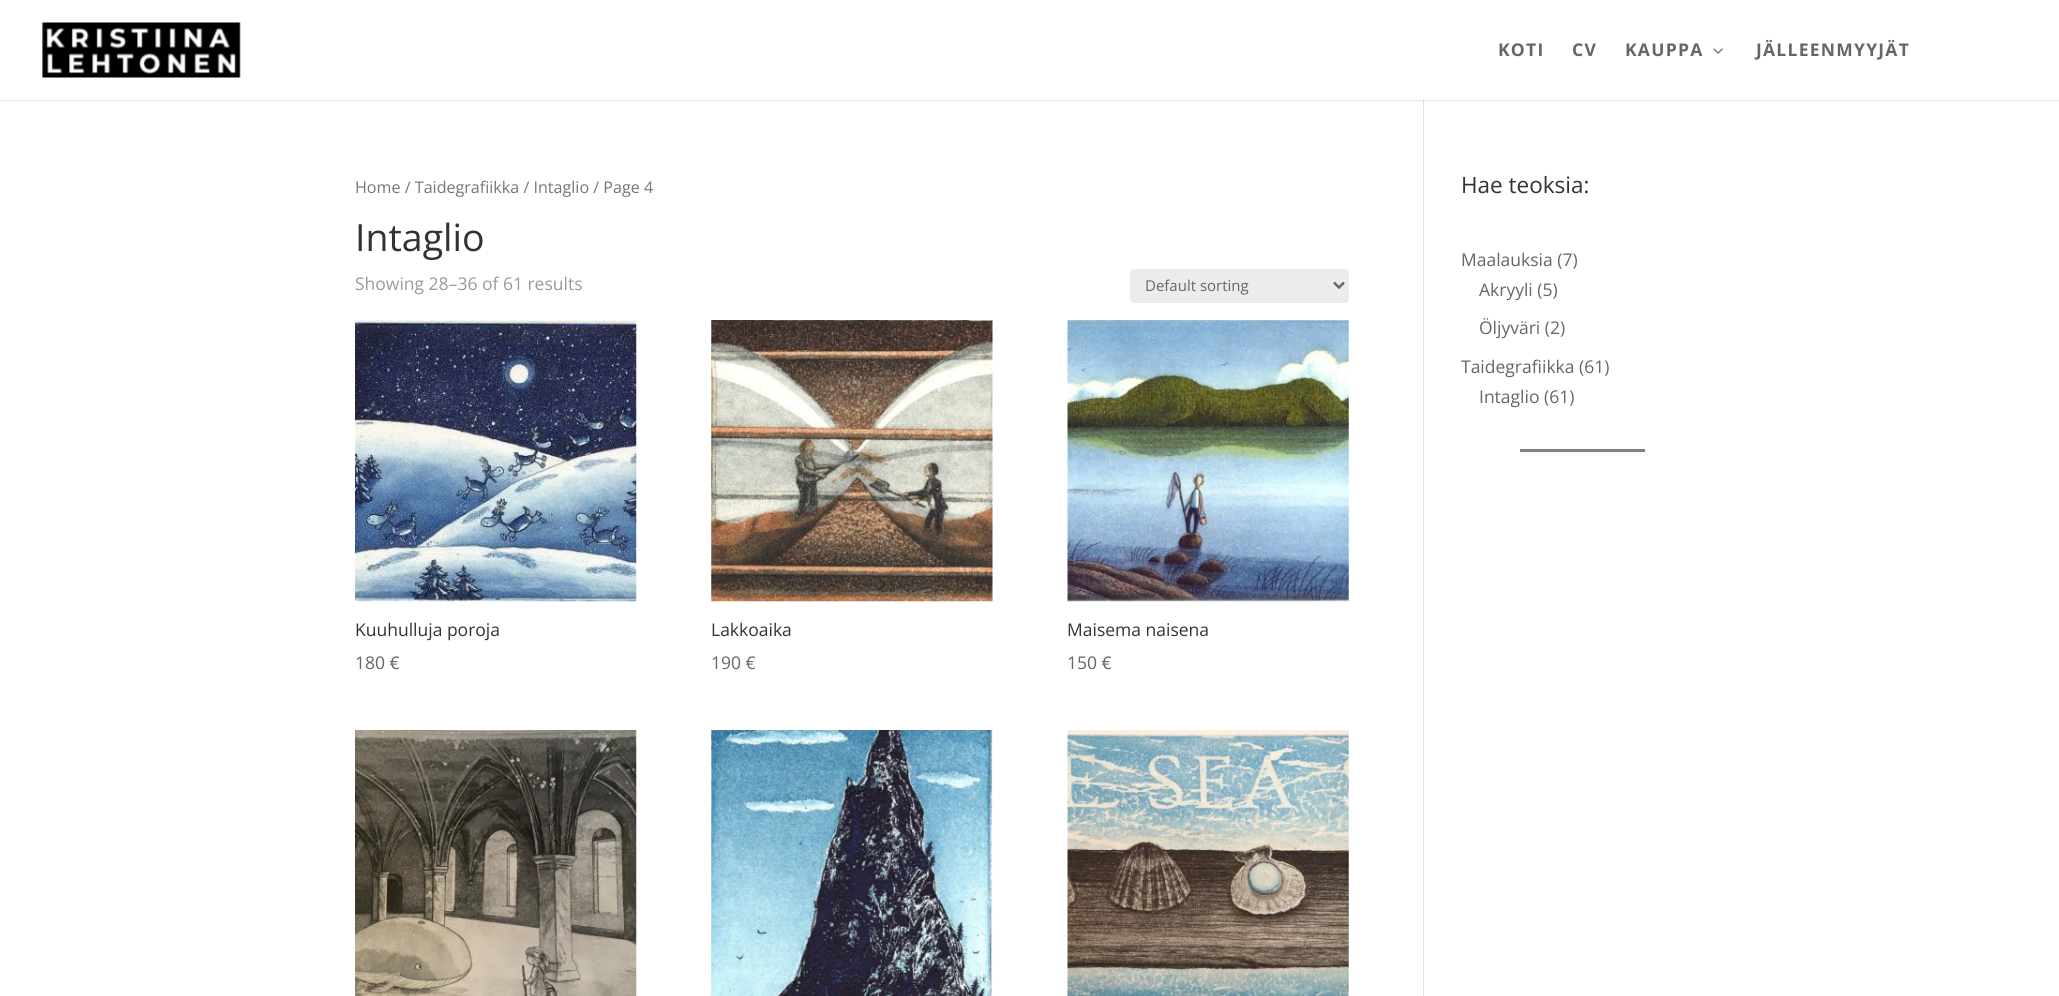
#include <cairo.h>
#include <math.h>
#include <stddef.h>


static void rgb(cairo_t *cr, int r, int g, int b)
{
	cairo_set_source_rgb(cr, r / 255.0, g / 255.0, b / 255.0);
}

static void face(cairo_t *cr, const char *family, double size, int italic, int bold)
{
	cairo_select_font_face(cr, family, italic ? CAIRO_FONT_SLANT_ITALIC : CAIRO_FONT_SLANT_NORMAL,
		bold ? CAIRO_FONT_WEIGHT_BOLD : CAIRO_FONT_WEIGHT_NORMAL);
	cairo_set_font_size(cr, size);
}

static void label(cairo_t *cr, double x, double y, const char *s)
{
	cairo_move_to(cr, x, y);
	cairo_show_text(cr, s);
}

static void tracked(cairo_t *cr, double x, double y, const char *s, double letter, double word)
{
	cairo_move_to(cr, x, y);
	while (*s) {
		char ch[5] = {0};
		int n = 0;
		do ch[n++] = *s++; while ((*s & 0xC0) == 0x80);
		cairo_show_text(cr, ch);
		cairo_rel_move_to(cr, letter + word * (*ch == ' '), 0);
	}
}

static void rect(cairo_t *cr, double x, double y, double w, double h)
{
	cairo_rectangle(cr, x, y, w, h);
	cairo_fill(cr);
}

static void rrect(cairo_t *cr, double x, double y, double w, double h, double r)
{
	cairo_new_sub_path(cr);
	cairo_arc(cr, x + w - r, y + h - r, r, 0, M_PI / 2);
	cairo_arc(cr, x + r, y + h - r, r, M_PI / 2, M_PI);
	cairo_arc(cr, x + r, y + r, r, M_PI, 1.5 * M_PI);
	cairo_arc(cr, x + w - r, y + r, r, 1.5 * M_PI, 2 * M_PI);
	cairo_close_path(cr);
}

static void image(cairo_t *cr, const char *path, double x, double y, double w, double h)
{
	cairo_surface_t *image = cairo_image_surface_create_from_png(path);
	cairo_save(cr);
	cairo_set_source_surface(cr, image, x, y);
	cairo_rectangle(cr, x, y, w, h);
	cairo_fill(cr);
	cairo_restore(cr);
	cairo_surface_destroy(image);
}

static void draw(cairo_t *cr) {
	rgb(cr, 255, 255, 255);
	cairo_paint(cr);
	image(cr, "image0.png", 42, 22, 199, 56);
	face(cr, "Open Sans", 17.5, 0, 1);
	rgb(cr, 102, 102, 102);
	tracked(cr, 1498, 56, "KOTI", 1.25, 0);
	tracked(cr, 1572, 56, "CV", 1.25, 0);
	tracked(cr, 1625, 56, "KAUPPA", 1.25, 0);
	image(cr, "image1.png", 1713, 48, 10, 6);
	tracked(cr, 1756, 56, "JÄLLEENMYYJÄT", 1.25, 0);
	rgb(cr, 230, 230, 230);
	rect(cr, 0, 100, 2059, 1);
	rgb(cr, 226, 226, 226);
	rect(cr, 1423, 100, 1, 896);
	rgb(cr, 203, 203, 203);
	rect(cr, 1423, 100, 1, 1);
	face(cr, "Open Sans", 16.1, 0, 0);
	rgb(cr, 118, 118, 118);
	label(cr, 355, 193, "Home / Taidegrafiikka / Intaglio / Page 4");
	face(cr, "Open Sans", 37.5, 0, 0);
	rgb(cr, 51, 51, 51);
	label(cr, 355, 251, "Intaglio");
	face(cr, "Open Sans", 17.5, 0, 0);
	rgb(cr, 153, 153, 153);
	label(cr, 355, 290, "Showing 28–36 of 61 results");
	rgb(cr, 236, 236, 236);
	rrect(cr, 1130, 269, 219, 34, 4);
	cairo_fill(cr);
	cairo_new_path(cr);
	cairo_move_to(cr, 1334, 282.5);
	cairo_line_to(cr, 1339, 287.5);
	cairo_line_to(cr, 1344, 282.5);
	rgb(cr, 102, 102, 102);
	cairo_set_line_width(cr, 2.5);
	cairo_stroke(cr);
	face(cr, "Open Sans", 15, 0, 0);
	label(cr, 1145, 291, "Default sorting");
	image(cr, "image2.png", 355, 320, 282, 282);
	face(cr, "Open Sans", 17.5, 0, 0);
	rgb(cr, 51, 51, 51);
	label(cr, 355, 636, "Kuuhulluja poroja");
	rgb(cr, 102, 102, 102);
	label(cr, 355, 669, "180 €");
	image(cr, "image3.png", 711, 320, 282, 282);
	rgb(cr, 51, 51, 51);
	label(cr, 711, 636, "Lakkoaika");
	rgb(cr, 102, 102, 102);
	label(cr, 711, 669, "190 €");
	image(cr, "image4.png", 1067, 320, 282, 282);
	rgb(cr, 51, 51, 51);
	label(cr, 1067, 636, "Maisema naisena");
	rgb(cr, 102, 102, 102);
	label(cr, 1067, 669, "150 €");
	image(cr, "image5.png", 355, 730, 282, 266);
	image(cr, "image6.png", 711, 730, 282, 266);
	image(cr, "image7.png", 1067, 730, 282, 266);
	face(cr, "Open Sans", 22.5, 0, 0);
	rgb(cr, 51, 51, 51);
	label(cr, 1461, 193, "Hae teoksia:");
	face(cr, "Open Sans", 17.5, 0, 0);
	rgb(cr, 102, 102, 102);
	label(cr, 1461, 266, "Maalauksia (7)");
	label(cr, 1479, 296, "Akryyli (5)");
	label(cr, 1479, 334, "Öljyväri (2)");
	label(cr, 1461, 373, "Taidegrafiikka (61)");
	label(cr, 1479, 403, "Intaglio (61)");
	rgb(cr, 128, 128, 128);
	rect(cr, 1520, 449, 125, 3);
}

int main(void) {
	cairo_surface_t *surface = cairo_image_surface_create(CAIRO_FORMAT_RGB24, 2059, 996);
	cairo_t *cr = cairo_create(surface);
	cairo_font_options_t *options = cairo_font_options_create();
	cairo_font_options_set_hint_metrics(options, CAIRO_HINT_METRICS_OFF);
	cairo_font_options_set_hint_style(options, CAIRO_HINT_STYLE_NONE);
	cairo_set_font_options(cr, options);
	cairo_set_miter_limit(cr, 4);
	draw(cr);
	cairo_surface_write_to_png(surface, "render.png");
	cairo_font_options_destroy(options);
	cairo_destroy(cr);
	cairo_surface_destroy(surface);
	return 0;
}
